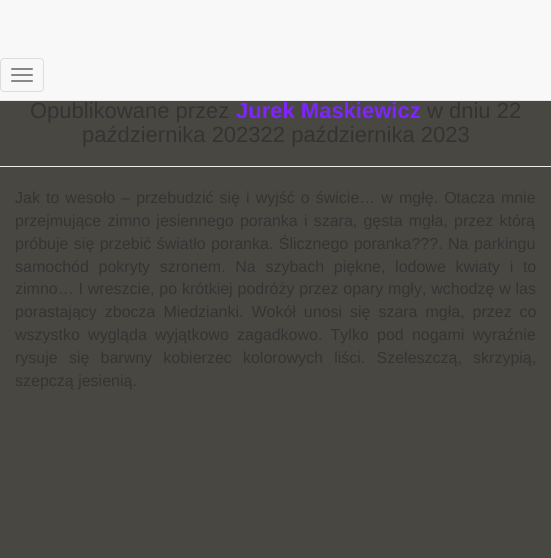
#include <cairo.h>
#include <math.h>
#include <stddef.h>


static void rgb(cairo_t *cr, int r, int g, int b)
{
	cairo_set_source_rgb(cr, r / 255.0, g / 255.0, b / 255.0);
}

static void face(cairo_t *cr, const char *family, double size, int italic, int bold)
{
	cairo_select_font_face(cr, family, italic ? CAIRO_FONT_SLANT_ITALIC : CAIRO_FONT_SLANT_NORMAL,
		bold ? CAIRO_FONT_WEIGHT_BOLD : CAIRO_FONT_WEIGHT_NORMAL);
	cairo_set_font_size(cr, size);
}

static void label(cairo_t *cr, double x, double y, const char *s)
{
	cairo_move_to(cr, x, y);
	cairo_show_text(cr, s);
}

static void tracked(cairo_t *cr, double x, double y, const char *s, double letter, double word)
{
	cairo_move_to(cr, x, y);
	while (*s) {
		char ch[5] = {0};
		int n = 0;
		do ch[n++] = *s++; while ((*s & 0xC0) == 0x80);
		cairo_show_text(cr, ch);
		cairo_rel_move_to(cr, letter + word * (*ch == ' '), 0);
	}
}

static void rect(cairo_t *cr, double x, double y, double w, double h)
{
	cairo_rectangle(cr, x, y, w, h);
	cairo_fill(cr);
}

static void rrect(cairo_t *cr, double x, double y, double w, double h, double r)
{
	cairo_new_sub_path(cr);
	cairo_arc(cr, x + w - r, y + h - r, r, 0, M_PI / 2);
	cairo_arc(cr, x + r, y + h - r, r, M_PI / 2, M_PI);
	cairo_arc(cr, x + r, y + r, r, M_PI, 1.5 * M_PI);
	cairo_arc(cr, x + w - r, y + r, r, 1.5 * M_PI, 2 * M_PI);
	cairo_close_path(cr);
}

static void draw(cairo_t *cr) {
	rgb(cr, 72, 71, 66);
	cairo_paint(cr);
	rgb(cr, 248, 248, 248);
	rect(cr, 0, 0, 551, 100);
	rgb(cr, 231, 231, 231);
	rect(cr, 0, 100, 551, 1);
	rrect(cr, 0.5, 58.5, 43, 33, 3.5);
	rgb(cr, 221, 221, 221);
	cairo_set_line_width(cr, 1);
	cairo_stroke(cr);
	rgb(cr, 136, 136, 136);
	rrect(cr, 11, 68, 22, 2, 1);
	cairo_fill(cr);
	rrect(cr, 11, 74, 22, 2, 1);
	cairo_fill(cr);
	rrect(cr, 11, 80, 22, 2, 1);
	cairo_fill(cr);
	rgb(cr, 238, 238, 238);
	rect(cr, 0, 166, 551, 1);
	face(cr, "Liberation Sans", 22, 0, 0);
	rgb(cr, 51, 51, 51);
	label(cr, 30, 118, "Opublikowane przez");
	face(cr, "Liberation Sans", 22, 0, 1);
	rgb(cr, 127, 35, 255);
	label(cr, 236, 118, "Jurek Maskiewicz");
	face(cr, "Liberation Sans", 22, 0, 0);
	rgb(cr, 51, 51, 51);
	label(cr, 427, 118, "w dniu 22");
	label(cr, 82, 142, "października 202322 października 2023");
	face(cr, "Liberation Sans", 16, 0, 0);
	tracked(cr, 15, 203, "Jak to wesoło – przebudzić się i wyjść o świcie… w mgłę. Otacza mnie", 0, 1.6);
	tracked(cr, 15, 226, "przejmujące zimno jesiennego poranka i szara, gęsta mgła, przez którą", 0, 1.75);
	tracked(cr, 15, 249, "próbuje się przebić światło poranka. Ślicznego poranka?\077?. Na parkingu", 0, 1);
	tracked(cr, 15, 272, "samochód pokryty szronem. Na szybach piękne, lodowe kwiaty i to", 0, 5.25);
	tracked(cr, 15, 294, "zimno… I wreszcie, po krótkiej podróży przez opary mgły, wchodzę w las", 0, 0.4);
	tracked(cr, 15, 317, "porastający zbocza Miedzianki. Wokół unosi się szara mgła, przez co", 0, 3.5);
	tracked(cr, 15, 340, "wszystko wygląda wyjątkowo zagadkowo. Tylko pod nogami wyraźnie", 0, 3.75);
	tracked(cr, 15, 363, "rysuje się barwny kobierzec kolorowych liści. Szeleszczą, skrzypią,", 0, 6.75);
	label(cr, 15, 386, "szepczą jesienią.");
}

int main(void) {
	cairo_surface_t *surface = cairo_image_surface_create(CAIRO_FORMAT_RGB24, 551, 558);
	cairo_t *cr = cairo_create(surface);
	cairo_font_options_t *options = cairo_font_options_create();
	cairo_font_options_set_hint_metrics(options, CAIRO_HINT_METRICS_OFF);
	cairo_font_options_set_hint_style(options, CAIRO_HINT_STYLE_NONE);
	cairo_set_font_options(cr, options);
	cairo_set_miter_limit(cr, 4);
	draw(cr);
	cairo_surface_write_to_png(surface, "render.png");
	cairo_font_options_destroy(options);
	cairo_destroy(cr);
	cairo_surface_destroy(surface);
	return 0;
}
